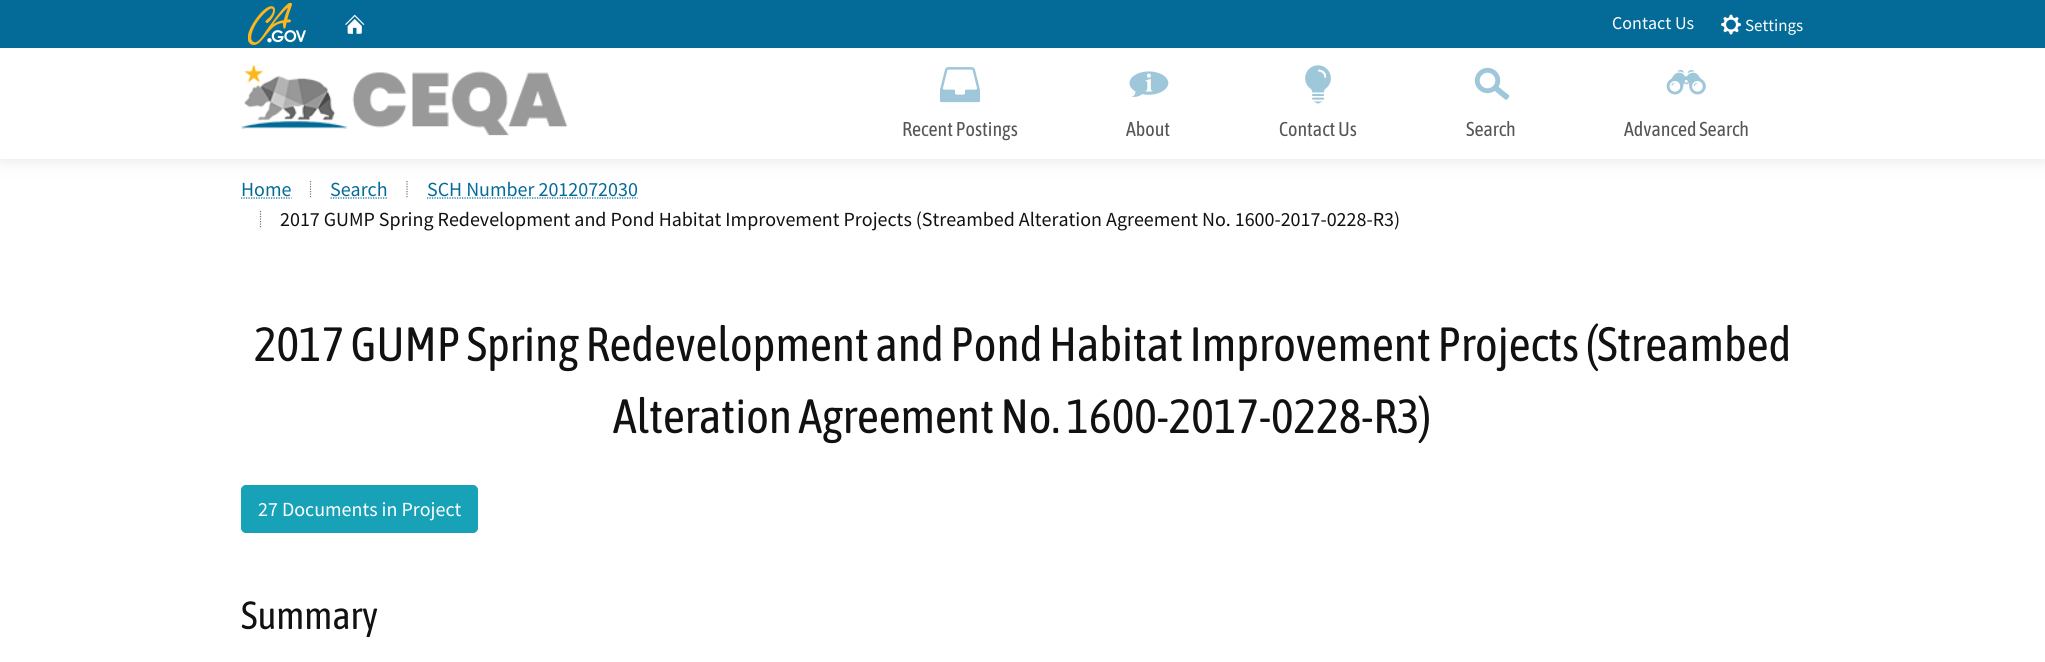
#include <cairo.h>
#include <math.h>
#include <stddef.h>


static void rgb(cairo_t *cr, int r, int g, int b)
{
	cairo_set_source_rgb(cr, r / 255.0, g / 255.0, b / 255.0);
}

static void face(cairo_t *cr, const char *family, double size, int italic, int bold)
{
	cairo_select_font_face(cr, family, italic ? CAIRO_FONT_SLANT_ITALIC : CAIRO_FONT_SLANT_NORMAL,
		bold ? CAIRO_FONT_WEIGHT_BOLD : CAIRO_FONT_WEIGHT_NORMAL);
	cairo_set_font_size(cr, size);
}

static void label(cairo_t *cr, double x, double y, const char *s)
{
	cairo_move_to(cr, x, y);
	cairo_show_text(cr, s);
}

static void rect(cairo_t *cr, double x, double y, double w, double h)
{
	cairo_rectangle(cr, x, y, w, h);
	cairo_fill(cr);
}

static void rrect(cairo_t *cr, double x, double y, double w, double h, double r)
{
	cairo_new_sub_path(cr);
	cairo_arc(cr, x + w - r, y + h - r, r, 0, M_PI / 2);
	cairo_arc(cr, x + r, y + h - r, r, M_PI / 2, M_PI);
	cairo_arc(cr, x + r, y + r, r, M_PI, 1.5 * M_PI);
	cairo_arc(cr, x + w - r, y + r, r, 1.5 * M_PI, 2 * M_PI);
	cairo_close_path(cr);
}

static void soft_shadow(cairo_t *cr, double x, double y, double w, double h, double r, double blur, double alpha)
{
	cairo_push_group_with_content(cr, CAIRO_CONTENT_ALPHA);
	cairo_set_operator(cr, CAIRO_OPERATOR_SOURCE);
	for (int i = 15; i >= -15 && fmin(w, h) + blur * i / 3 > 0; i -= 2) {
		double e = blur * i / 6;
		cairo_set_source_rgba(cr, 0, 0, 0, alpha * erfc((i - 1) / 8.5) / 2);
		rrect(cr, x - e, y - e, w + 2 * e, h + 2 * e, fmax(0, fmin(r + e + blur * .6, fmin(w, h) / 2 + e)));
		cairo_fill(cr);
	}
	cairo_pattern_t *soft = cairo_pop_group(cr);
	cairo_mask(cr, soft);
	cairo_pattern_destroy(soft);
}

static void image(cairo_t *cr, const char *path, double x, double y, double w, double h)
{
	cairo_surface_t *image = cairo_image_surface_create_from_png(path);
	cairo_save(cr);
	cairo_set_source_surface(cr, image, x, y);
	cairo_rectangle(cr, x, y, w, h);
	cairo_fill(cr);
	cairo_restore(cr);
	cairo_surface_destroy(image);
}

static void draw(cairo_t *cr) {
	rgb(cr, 255, 255, 255);
	cairo_paint(cr);
	cairo_new_path(cr);
	cairo_move_to(cr, 310.5, 181);
	cairo_line_to(cr, 310.5, 197.5);
	rgb(cr, 119, 119, 119);
	cairo_set_line_width(cr, 1.2);
	cairo_set_dash(cr, (double[]){1.25, 1.25}, 2, 0);
	cairo_stroke(cr);
	cairo_new_path(cr);
	cairo_move_to(cr, 407, 181);
	cairo_line_to(cr, 407, 197.5);
	cairo_stroke(cr);
	rgb(cr, 189, 189, 189);
	soft_shadow(cr, 0, 0, 2045, 159, 0, 9.5, 0.4);
	rgb(cr, 255, 255, 255);
	rect(cr, 0, 48, 2045, 111);
	rgb(cr, 4, 107, 153);
	rect(cr, 0, 0, 2045, 48);
	image(cr, "image0.png", 248, 3, 58, 42);
	image(cr, "image1.png", 345, 14, 20, 20);
	face(cr, "Source Sans Pro", 18, 0, 0);
	rgb(cr, 255, 255, 255);
	label(cr, 1612, 29, "Contact Us");
	image(cr, "image2.png", 1721, 14, 20, 21);
	face(cr, "Source Sans Pro", 17, 0, 0);
	label(cr, 1745, 31, "Settings");
	image(cr, "image3.png", 241, 64, 327, 72);
	image(cr, "image4.png", 940, 67, 40, 36);
	face(cr, "Asap Condensed", 20, 0, 0);
	rgb(cr, 85, 85, 85);
	label(cr, 902, 136, "Recent Postings");
	image(cr, "image5.png", 1129, 71, 40, 26);
	label(cr, 1126, 136, "About");
	image(cr, "image6.png", 1305, 65, 26, 39);
	label(cr, 1279, 136, "Contact Us");
	image(cr, "image7.png", 1474, 67, 36, 33);
	label(cr, 1466, 136, "Search");
	image(cr, "image8.png", 1666, 69, 40, 26);
	label(cr, 1624, 136, "Advanced Search");
	face(cr, "Source Sans Pro", 20, 0, 0);
	rgb(cr, 4, 107, 153);
	label(cr, 241, 196, "Home");
	cairo_new_path(cr);
	cairo_move_to(cr, 241, 198);
	cairo_line_to(cr, 291.5, 198);
	cairo_stroke(cr);
	label(cr, 330, 196, "Search");
	cairo_new_path(cr);
	cairo_move_to(cr, 330.5, 198);
	cairo_line_to(cr, 388, 198);
	cairo_stroke(cr);
	label(cr, 427, 196, "SCH Number 2012072030");
	cairo_new_path(cr);
	cairo_move_to(cr, 427, 198);
	cairo_line_to(cr, 637.5, 198);
	cairo_stroke(cr);
	cairo_new_path(cr);
	cairo_move_to(cr, 260.5, 211);
	cairo_line_to(cr, 260.5, 227.5);
	rgb(cr, 119, 119, 119);
	cairo_stroke(cr);
	rgb(cr, 17, 17, 17);
	label(cr, 280, 226, "2017 GUMP Spring Redevelopment and Pond Habitat Improvement Projects (Streambed Alteration Agreement No. 1600-2017-0228-R3)");
	face(cr, "Asap Condensed", 48, 0, 0);
	label(cr, 254, 361, "2017 GUMP Spring Redevelopment and Pond Habitat Improvement Projects (Streambed");
	label(cr, 613, 433, "Alteration Agreement No. 1600-2017-0228-R3)");
	rgb(cr, 23, 162, 184);
	rrect(cr, 241.5, 485.5, 236, 47, 4.5);
	cairo_fill_preserve(cr);
	cairo_set_line_width(cr, 1);
	cairo_set_dash(cr, NULL, 0, 0);
	cairo_stroke(cr);
	face(cr, "Source Sans Pro", 20, 0, 0);
	rgb(cr, 255, 255, 255);
	label(cr, 258, 516, "27 Documents in Project");
	face(cr, "Asap Condensed", 39, 0, 0);
	rgb(cr, 17, 17, 17);
	label(cr, 241, 629, "Summary");
}

int main(void) {
	cairo_surface_t *surface = cairo_image_surface_create(CAIRO_FORMAT_RGB24, 2045, 662);
	cairo_t *cr = cairo_create(surface);
	cairo_font_options_t *options = cairo_font_options_create();
	cairo_font_options_set_hint_metrics(options, CAIRO_HINT_METRICS_OFF);
	cairo_font_options_set_hint_style(options, CAIRO_HINT_STYLE_NONE);
	cairo_set_font_options(cr, options);
	cairo_set_miter_limit(cr, 4);
	draw(cr);
	cairo_surface_write_to_png(surface, "render.png");
	cairo_font_options_destroy(options);
	cairo_destroy(cr);
	cairo_surface_destroy(surface);
	return 0;
}
